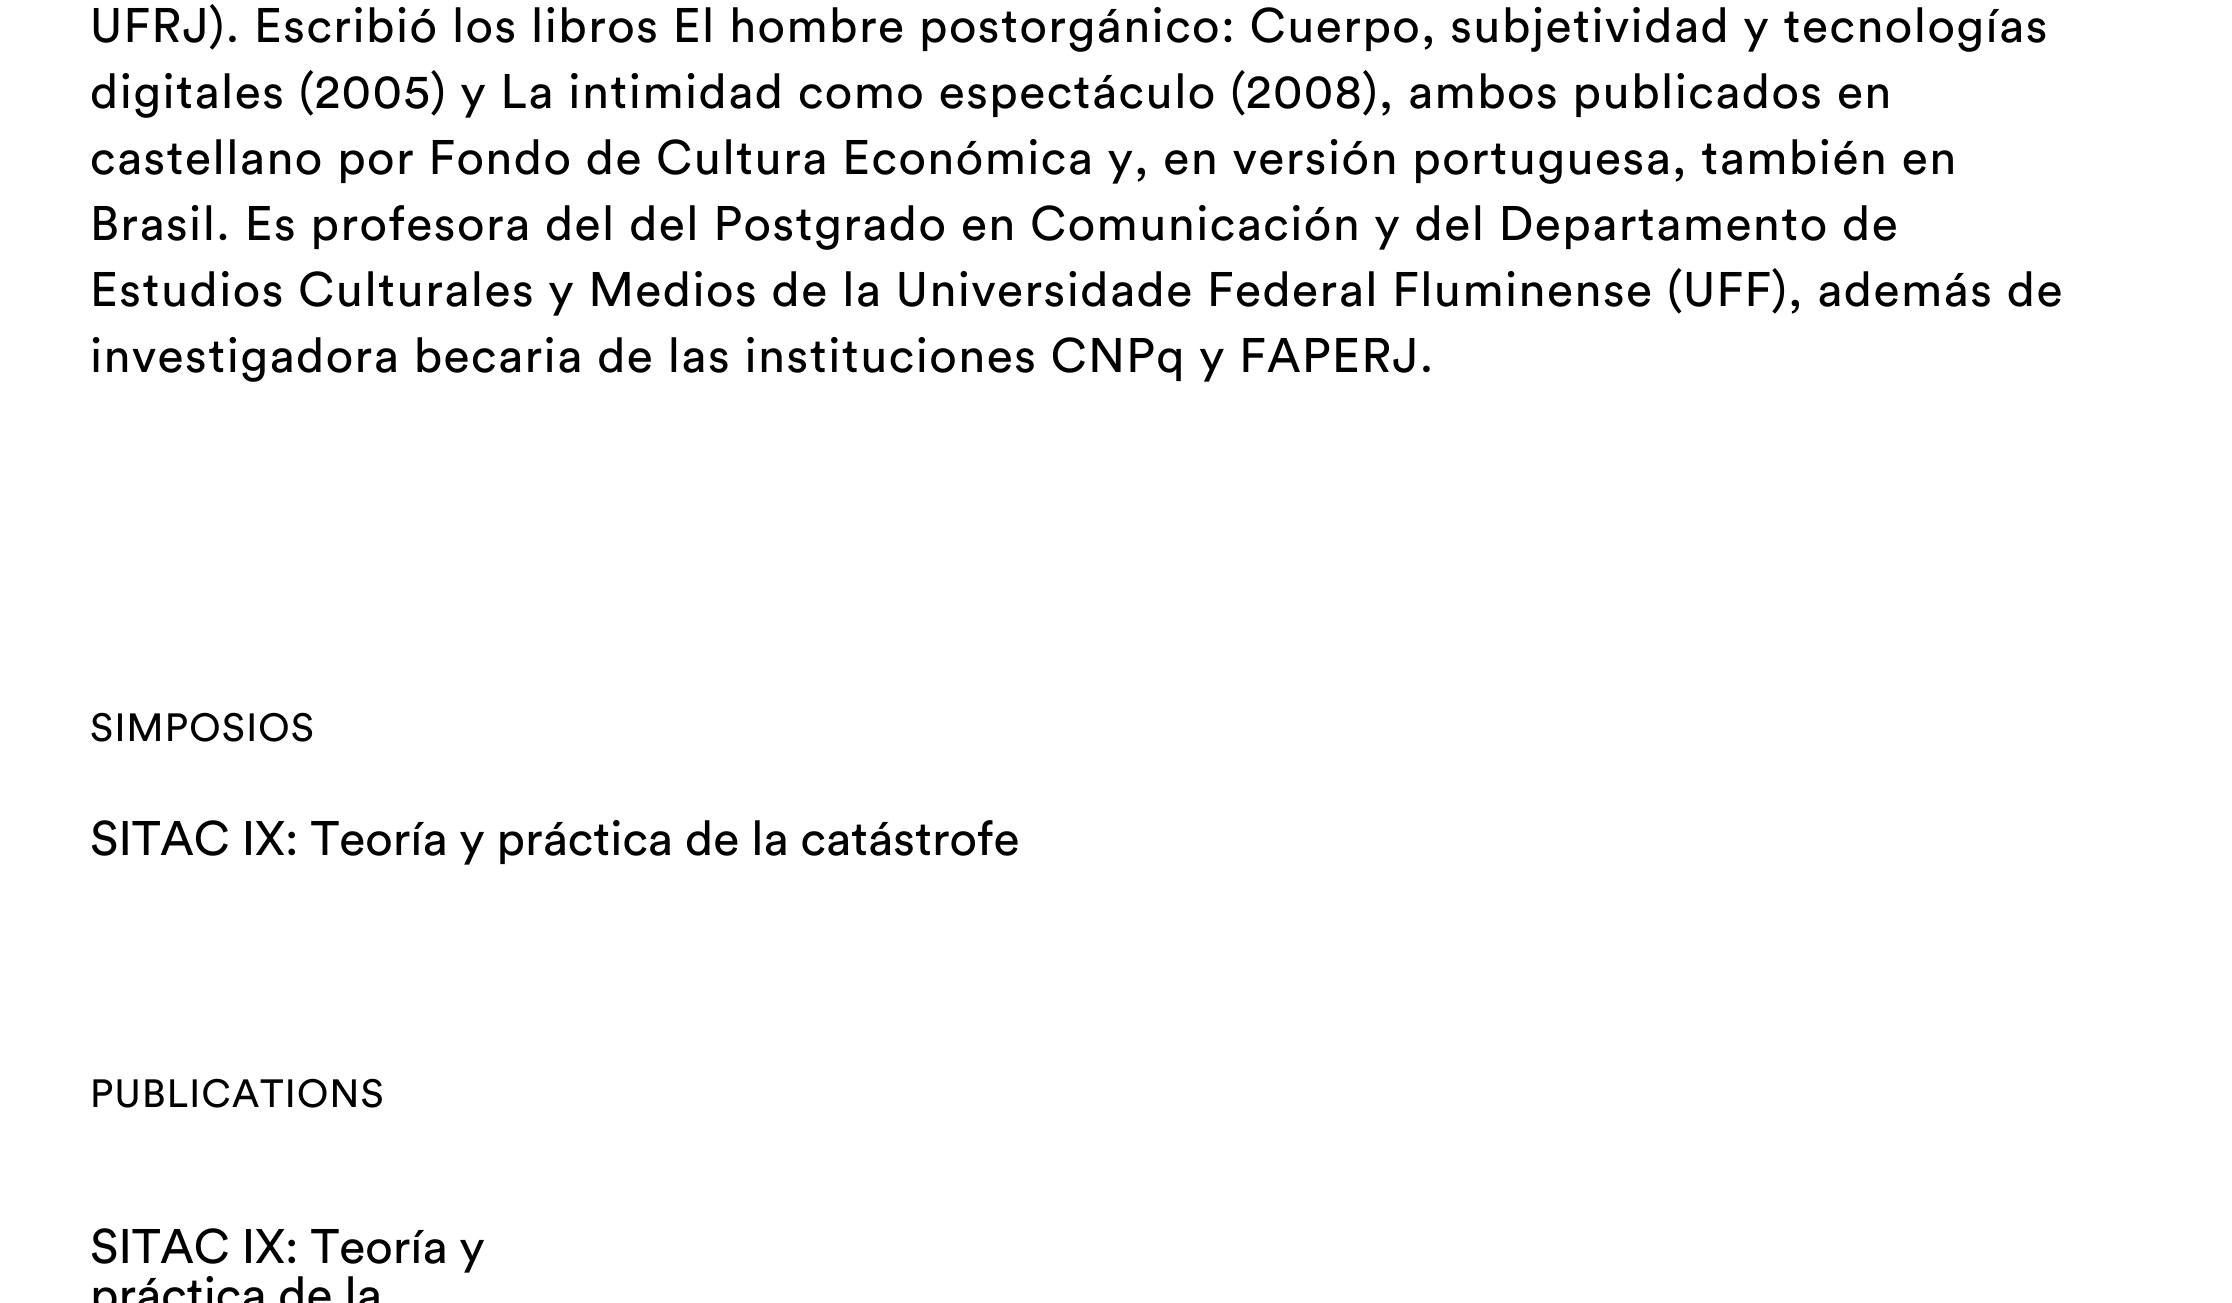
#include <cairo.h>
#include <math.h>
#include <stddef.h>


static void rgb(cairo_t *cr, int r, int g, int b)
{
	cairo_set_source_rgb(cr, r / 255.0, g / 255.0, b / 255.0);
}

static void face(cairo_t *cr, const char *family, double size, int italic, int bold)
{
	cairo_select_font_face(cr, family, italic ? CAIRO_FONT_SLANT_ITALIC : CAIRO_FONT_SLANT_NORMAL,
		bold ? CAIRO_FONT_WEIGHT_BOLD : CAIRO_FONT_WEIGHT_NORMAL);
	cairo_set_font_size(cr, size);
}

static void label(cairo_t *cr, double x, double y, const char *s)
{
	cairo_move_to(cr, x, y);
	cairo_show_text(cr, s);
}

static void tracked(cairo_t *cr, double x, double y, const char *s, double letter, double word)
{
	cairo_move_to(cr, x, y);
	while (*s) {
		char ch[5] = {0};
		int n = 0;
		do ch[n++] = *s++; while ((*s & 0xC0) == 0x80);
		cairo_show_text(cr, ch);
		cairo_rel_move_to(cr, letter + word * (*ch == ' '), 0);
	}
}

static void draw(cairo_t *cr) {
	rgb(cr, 255, 255, 255);
	cairo_paint(cr);
	face(cr, "Circular", 48, 0, 0);
	rgb(cr, 0, 0, 0);
	tracked(cr, 90, 42, "UFRJ). Escribió los libros El hombre postorgánico: Cuerpo, subjetividad y tecnologías", 1.45, 0);
	tracked(cr, 90, 108, "digitales (2005) y La intimidad como espectáculo (2008), ambos publicados en", 1.45, 0);
	tracked(cr, 90, 174, "castellano por Fondo de Cultura Económica y, en versión portuguesa, también en", 1.45, 0);
	tracked(cr, 90, 240, "Brasil. Es profesora del del Postgrado en Comunicación y del Departamento de", 1.45, 0);
	tracked(cr, 90, 306, "Estudios Culturales y Medios de la Universidade Federal Fluminense (UFF), además de", 1.45, 0);
	tracked(cr, 90, 372, "investigadora becaria de las instituciones CNPq y FAPERJ.", 1.45, 0);
	face(cr, "Circular", 39, 0, 0);
	tracked(cr, 90, 741, "SIMPOSIOS", 1.25, 0);
	face(cr, "Circular", 48, 0, 0);
	label(cr, 90, 855, "SITAC IX: Teoría y práctica de la catástrofe");
	face(cr, "Circular", 39, 0, 0);
	tracked(cr, 90, 1107, "PUBLICATIONS", 1.25, 0);
	face(cr, "Circular", 48, 0, 0);
	label(cr, 90, 1263, "SITAC IX: Teoría y");
	label(cr, 90, 1311, "práctica de la");
}

int main(void) {
	cairo_surface_t *surface = cairo_image_surface_create(CAIRO_FORMAT_RGB24, 2232, 1303);
	cairo_t *cr = cairo_create(surface);
	cairo_font_options_t *options = cairo_font_options_create();
	cairo_font_options_set_hint_metrics(options, CAIRO_HINT_METRICS_OFF);
	cairo_font_options_set_hint_style(options, CAIRO_HINT_STYLE_NONE);
	cairo_set_font_options(cr, options);
	cairo_set_miter_limit(cr, 4);
	draw(cr);
	cairo_surface_write_to_png(surface, "render.png");
	cairo_font_options_destroy(options);
	cairo_destroy(cr);
	cairo_surface_destroy(surface);
	return 0;
}
